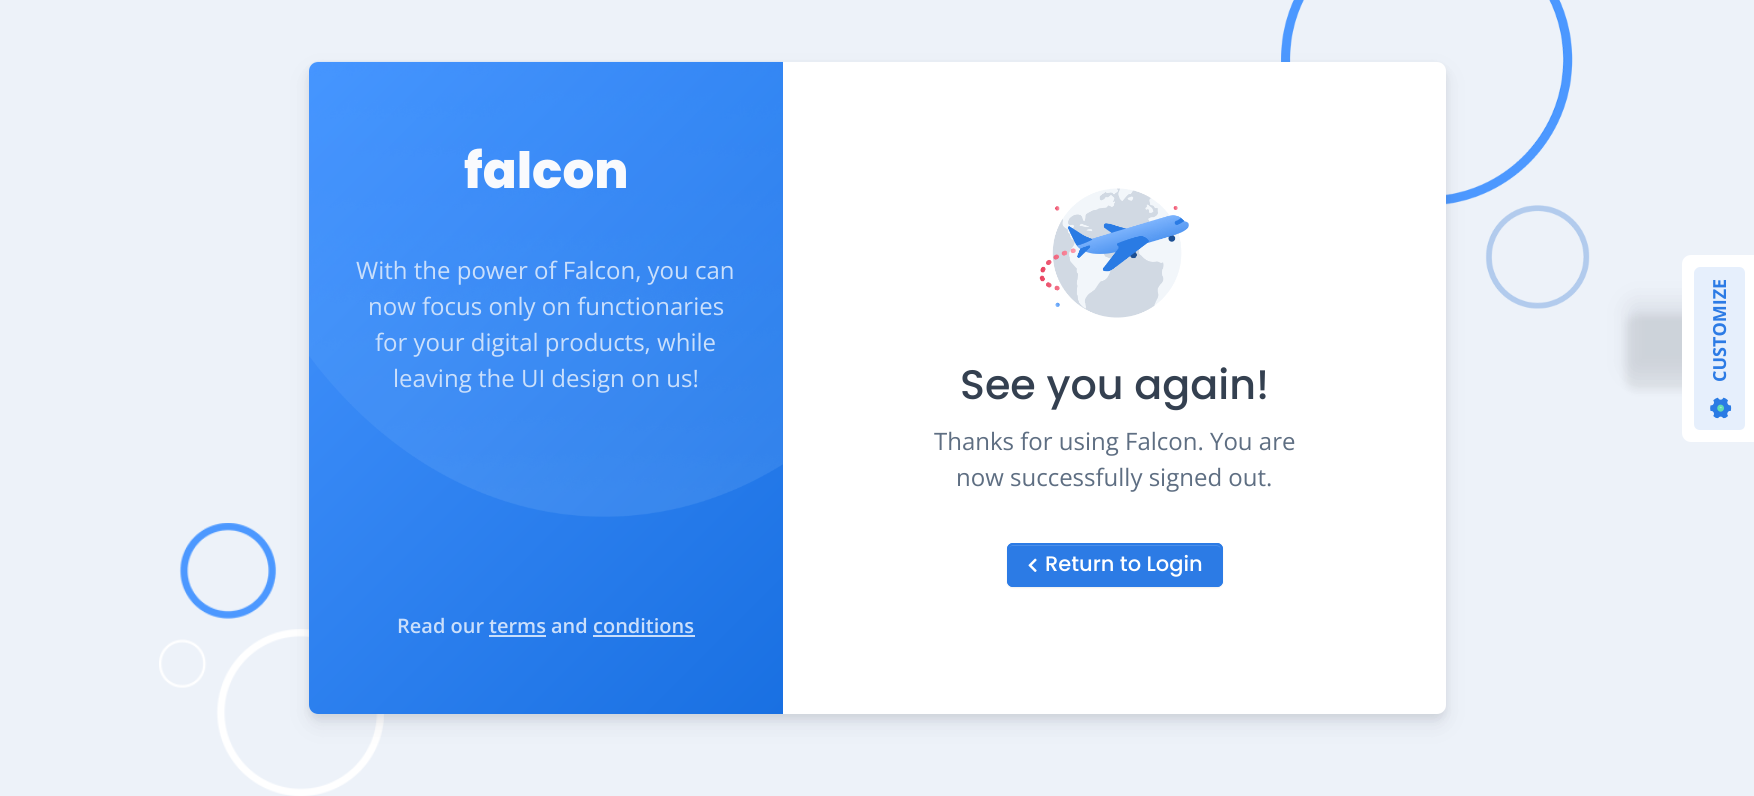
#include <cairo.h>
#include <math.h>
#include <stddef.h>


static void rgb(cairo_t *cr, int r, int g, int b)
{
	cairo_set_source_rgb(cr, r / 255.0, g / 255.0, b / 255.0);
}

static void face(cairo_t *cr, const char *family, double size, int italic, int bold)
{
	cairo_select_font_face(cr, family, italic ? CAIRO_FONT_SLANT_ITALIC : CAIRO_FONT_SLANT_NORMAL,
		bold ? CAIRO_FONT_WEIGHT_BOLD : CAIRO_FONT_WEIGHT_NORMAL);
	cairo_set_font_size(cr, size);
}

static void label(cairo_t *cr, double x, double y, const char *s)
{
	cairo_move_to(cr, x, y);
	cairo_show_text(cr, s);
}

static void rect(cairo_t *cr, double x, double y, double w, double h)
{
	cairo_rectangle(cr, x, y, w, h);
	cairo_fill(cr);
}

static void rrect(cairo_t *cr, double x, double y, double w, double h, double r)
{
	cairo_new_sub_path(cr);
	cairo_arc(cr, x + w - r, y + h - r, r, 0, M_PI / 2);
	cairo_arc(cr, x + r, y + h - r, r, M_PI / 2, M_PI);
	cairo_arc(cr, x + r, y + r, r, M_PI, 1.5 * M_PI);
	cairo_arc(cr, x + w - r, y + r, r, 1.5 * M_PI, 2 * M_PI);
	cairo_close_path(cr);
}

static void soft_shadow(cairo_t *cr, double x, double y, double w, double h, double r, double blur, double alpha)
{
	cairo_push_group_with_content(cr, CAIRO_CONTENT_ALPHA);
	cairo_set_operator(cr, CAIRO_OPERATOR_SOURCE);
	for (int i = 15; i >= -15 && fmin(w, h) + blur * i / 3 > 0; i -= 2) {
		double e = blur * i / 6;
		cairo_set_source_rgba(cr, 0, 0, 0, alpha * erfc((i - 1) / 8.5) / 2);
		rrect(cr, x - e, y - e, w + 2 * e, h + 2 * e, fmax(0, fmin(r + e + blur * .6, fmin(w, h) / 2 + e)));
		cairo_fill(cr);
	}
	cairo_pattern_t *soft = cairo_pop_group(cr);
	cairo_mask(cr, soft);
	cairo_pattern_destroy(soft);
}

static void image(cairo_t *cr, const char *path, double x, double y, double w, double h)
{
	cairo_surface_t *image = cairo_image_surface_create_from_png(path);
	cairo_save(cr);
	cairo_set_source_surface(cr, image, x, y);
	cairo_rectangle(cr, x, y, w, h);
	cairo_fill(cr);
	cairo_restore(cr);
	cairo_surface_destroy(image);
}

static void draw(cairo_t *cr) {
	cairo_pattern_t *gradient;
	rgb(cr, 237, 242, 249);
	cairo_paint(cr);
	image(cr, "image0.png", 159, 523, 225, 273);
	image(cr, "image4.png", 1281, 0, 309, 309);
	rgb(cr, 0, 0, 0);
	soft_shadow(cr, 309, 66, 1137, 653, 9, 4.5, 0.07);
	rgb(cr, 65, 69, 88);
	soft_shadow(cr, 309, 72, 1137, 653, 9, 10.5, 0.1);
	rgb(cr, 255, 255, 255);
	rrect(cr, 309, 62, 1137, 652, 9);
	cairo_fill(cr);
	gradient = cairo_pattern_create_linear(828, 669, 264, 106);
	cairo_pattern_add_color_stop_rgba(gradient, 0, 0.098, 0.439, 0.886, 1);
	cairo_pattern_add_color_stop_rgba(gradient, 1, 0.275, 0.584, 1, 1);
	cairo_set_source(cr, gradient);
	cairo_pattern_destroy(gradient);
	cairo_new_path(cr);
	cairo_move_to(cr, 318, 62);
	cairo_line_to(cr, 783, 62);
	cairo_line_to(cr, 783, 714);
	cairo_line_to(cr, 318, 714);
	cairo_curve_to(cr, 313, 714, 309, 710, 309, 705);
	cairo_line_to(cr, 309, 71);
	cairo_curve_to(cr, 309, 66, 313, 62, 318, 62);
	cairo_close_path(cr);
	cairo_fill(cr);
	gradient = cairo_pattern_create_linear(828, 669, 264, 106);
	cairo_pattern_add_color_stop_rgba(gradient, 0, 0.776, 0.859, 0.973, 1);
	cairo_pattern_add_color_stop_rgba(gradient, 1, 0.82, 0.898, 1, 1);
	cairo_set_source(cr, gradient);
	cairo_pattern_destroy(gradient);
	rect(cr, 593, 635, 102, 2);
	image(cr, "image1.png", 309, 61, 474, 456);
	face(cr, "Poppins ExtraBold", 50, 0, 0);
	rgb(cr, 249, 250, 253);
	label(cr, 464, 188, "falcon");
	face(cr, "Open Sans", 24, 0, 0);
	rgb(cr, 202, 223, 251);
	label(cr, 356, 279, "With the power of Falcon, you can");
	label(cr, 368, 315, "now focus only on functionaries");
	label(cr, 375, 351, "for your digital products, while");
	label(cr, 393, 387, "leaving the UI design on us!");
	face(cr, "Open Sans SemiBold", 20, 0, 0);
	label(cr, 397, 633, "Read our");
	label(cr, 489, 633, "terms");
	rgb(cr, 201, 222, 250);
	rect(cr, 489, 635, 57, 2);
	rgb(cr, 202, 223, 251);
	label(cr, 551, 633, "and");
	label(cr, 593, 633, "conditions");
	image(cr, "image2.png", 1039, 188, 150, 130);
	face(cr, "Poppins Medium", 41.25, 0, 0);
	rgb(cr, 52, 64, 80);
	label(cr, 960, 399, "See you again!");
	face(cr, "Open Sans", 24, 0, 0);
	rgb(cr, 94, 110, 130);
	label(cr, 934, 450, "Thanks for using Falcon. You are");
	label(cr, 956, 486, "now successfully signed out.");
	rgb(cr, 0, 0, 0);
	soft_shadow(cr, 1007, 545, 216, 43, 6, 1, 0.07);
	rgb(cr, 44, 123, 229);
	rrect(cr, 1007, 543, 216, 44, 6);
	cairo_fill(cr);
	rgb(cr, 76, 143, 233);
	cairo_new_path(cr);
	cairo_move_to(cr, 1012, 546);
	cairo_line_to(cr, 1216, 546);
	cairo_curve_to(cr, 1219, 546, 1221, 548, 1221, 550);
	cairo_curve_to(cr, 1221, 547, 1219, 545, 1216, 545);
	cairo_line_to(cr, 1013, 545);
	cairo_curve_to(cr, 1010, 545, 1008, 547, 1008, 550);
	cairo_curve_to(cr, 1008, 548, 1010, 546, 1012, 546);
	cairo_close_path(cr);
	cairo_fill(cr);
	rrect(cr, 1008, 544, 214, 42, 5);
	rgb(cr, 44, 123, 229);
	cairo_stroke(cr);
	image(cr, "image3.png", 1028, 558, 9, 14);
	face(cr, "Poppins Medium", 21, 0, 0);
	rgb(cr, 255, 255, 255);
	label(cr, 1045, 571, "Return to Login");
	rgb(cr, 0, 0, 0);
	soft_shadow(cr, 1626, 315, 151, 75, 9, 4.5, 0.07);
	rgb(cr, 65, 69, 88);
	soft_shadow(cr, 1626, 300, 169, 75, 9, 10.5, 0.1);
	rgb(cr, 255, 255, 255);
	cairo_new_path(cr);
	cairo_move_to(cr, 1682, 433);
	cairo_line_to(cr, 1682, 264);
	cairo_curve_to(cr, 1682, 259, 1686, 255, 1691, 255);
	cairo_line_to(cr, 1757, 255);
	cairo_line_to(cr, 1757, 442);
	cairo_line_to(cr, 1691, 442);
	cairo_curve_to(cr, 1686, 442, 1682, 438, 1682, 433);
	cairo_close_path(cr);
	cairo_fill(cr);
	rgb(cr, 230, 239, 252);
	cairo_new_path(cr);
	cairo_move_to(cr, 1694, 388);
	cairo_line_to(cr, 1694, 273);
	cairo_curve_to(cr, 1694, 270, 1697, 267, 1700, 267);
	cairo_line_to(cr, 1739, 267);
	cairo_curve_to(cr, 1743, 267, 1745, 270, 1745, 273);
	cairo_line_to(cr, 1745, 388);
	cairo_close_path(cr);
	cairo_fill(cr);
	face(cr, "Open Sans", 18, 0, 1);
	rgb(cr, 44, 123, 229);
	cairo_save(cr);
	cairo_translate(cr, 1726, 382);
	cairo_rotate(cr, -90 * M_PI / 180);
	label(cr, 0, 0, "CUSTOMIZE");
	cairo_restore(cr);
	rgb(cr, 230, 239, 252);
	cairo_new_path(cr);
	cairo_move_to(cr, 1694, 424);
	cairo_line_to(cr, 1694, 388);
	cairo_line_to(cr, 1745, 388);
	cairo_line_to(cr, 1745, 424);
	cairo_curve_to(cr, 1745, 428, 1743, 430, 1739, 430);
	cairo_line_to(cr, 1700, 430);
	cairo_curve_to(cr, 1697, 430, 1694, 428, 1694, 424);
	cairo_close_path(cr);
	cairo_fill(cr);
	rgb(cr, 161, 230, 213);
	cairo_new_path(cr);
	cairo_move_to(cr, 1713, 407.5);
	cairo_curve_to(cr, 1713, 398, 1728, 398, 1728, 407.5);
	cairo_curve_to(cr, 1728, 417.5, 1713, 417.5, 1713, 407.5);
	cairo_close_path(cr);
	cairo_fill(cr);
	cairo_new_path(cr);
	cairo_move_to(cr, 1717.5, 407.5);
	cairo_curve_to(cr, 1717.5, 403.5, 1724, 403.5, 1724, 407.5);
	cairo_curve_to(cr, 1724, 411.5, 1717.5, 411.5, 1717.5, 407.5);
	cairo_close_path(cr);
	rgb(cr, 97, 222, 177);
	cairo_set_line_width(cr, 4.5);
	cairo_stroke(cr);
	image(cr, "image5.png", 1710, 397, 22, 22);
}

int main(void) {
	cairo_surface_t *surface = cairo_image_surface_create(CAIRO_FORMAT_RGB24, 1754, 796);
	cairo_t *cr = cairo_create(surface);
	cairo_font_options_t *options = cairo_font_options_create();
	cairo_font_options_set_hint_metrics(options, CAIRO_HINT_METRICS_OFF);
	cairo_font_options_set_hint_style(options, CAIRO_HINT_STYLE_NONE);
	cairo_set_font_options(cr, options);
	cairo_set_miter_limit(cr, 4);
	draw(cr);
	cairo_surface_write_to_png(surface, "render.png");
	cairo_font_options_destroy(options);
	cairo_destroy(cr);
	cairo_surface_destroy(surface);
	return 0;
}
